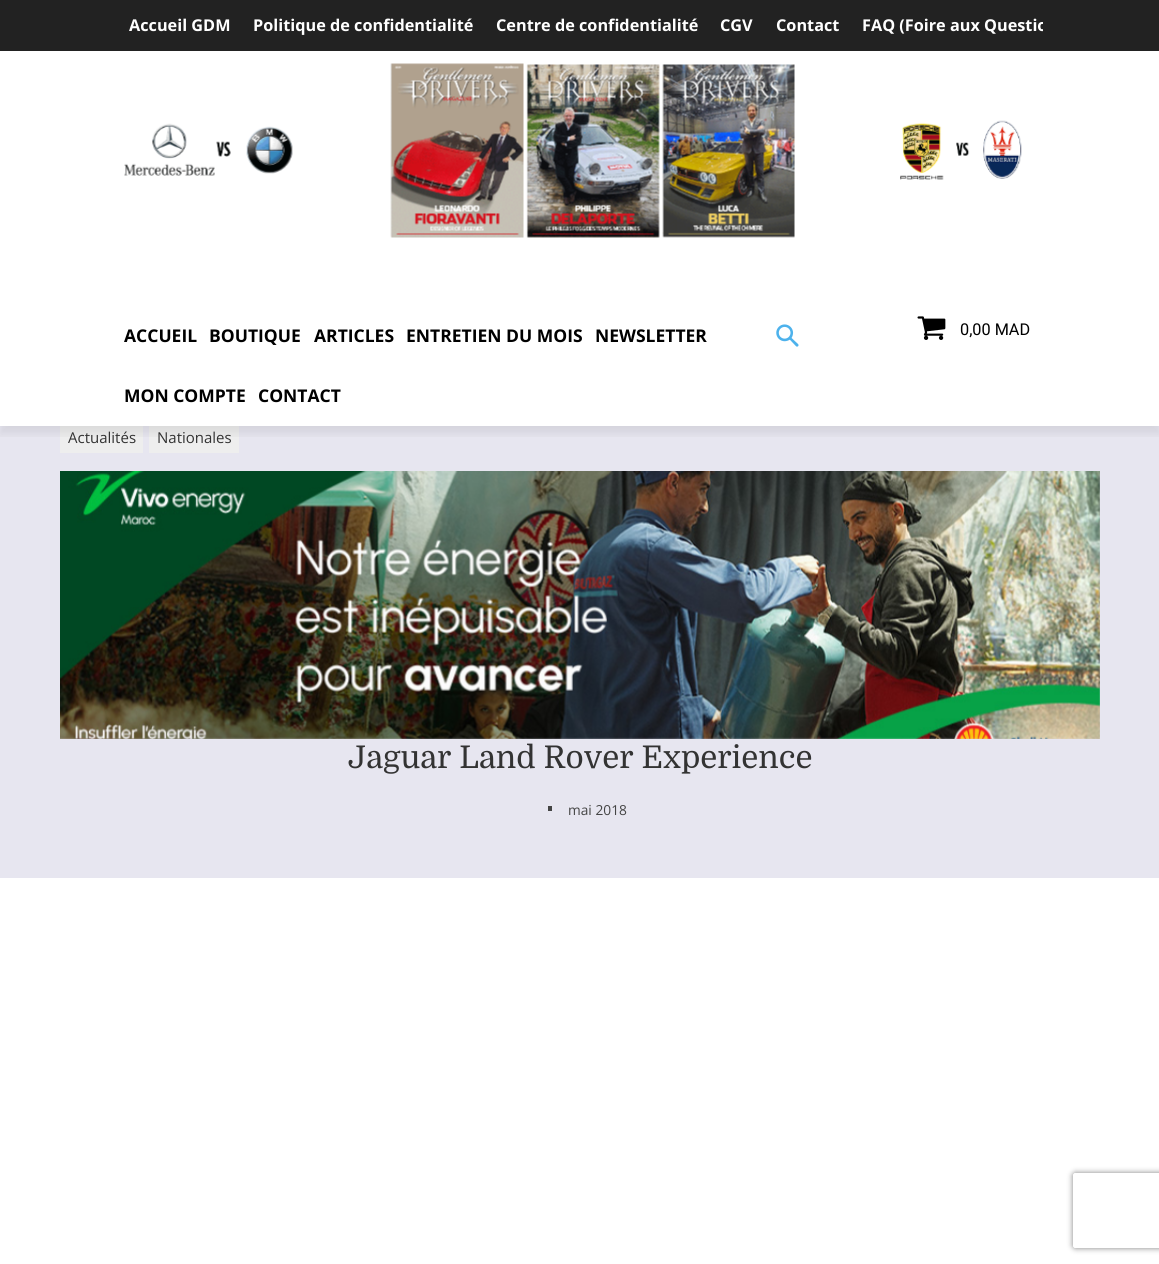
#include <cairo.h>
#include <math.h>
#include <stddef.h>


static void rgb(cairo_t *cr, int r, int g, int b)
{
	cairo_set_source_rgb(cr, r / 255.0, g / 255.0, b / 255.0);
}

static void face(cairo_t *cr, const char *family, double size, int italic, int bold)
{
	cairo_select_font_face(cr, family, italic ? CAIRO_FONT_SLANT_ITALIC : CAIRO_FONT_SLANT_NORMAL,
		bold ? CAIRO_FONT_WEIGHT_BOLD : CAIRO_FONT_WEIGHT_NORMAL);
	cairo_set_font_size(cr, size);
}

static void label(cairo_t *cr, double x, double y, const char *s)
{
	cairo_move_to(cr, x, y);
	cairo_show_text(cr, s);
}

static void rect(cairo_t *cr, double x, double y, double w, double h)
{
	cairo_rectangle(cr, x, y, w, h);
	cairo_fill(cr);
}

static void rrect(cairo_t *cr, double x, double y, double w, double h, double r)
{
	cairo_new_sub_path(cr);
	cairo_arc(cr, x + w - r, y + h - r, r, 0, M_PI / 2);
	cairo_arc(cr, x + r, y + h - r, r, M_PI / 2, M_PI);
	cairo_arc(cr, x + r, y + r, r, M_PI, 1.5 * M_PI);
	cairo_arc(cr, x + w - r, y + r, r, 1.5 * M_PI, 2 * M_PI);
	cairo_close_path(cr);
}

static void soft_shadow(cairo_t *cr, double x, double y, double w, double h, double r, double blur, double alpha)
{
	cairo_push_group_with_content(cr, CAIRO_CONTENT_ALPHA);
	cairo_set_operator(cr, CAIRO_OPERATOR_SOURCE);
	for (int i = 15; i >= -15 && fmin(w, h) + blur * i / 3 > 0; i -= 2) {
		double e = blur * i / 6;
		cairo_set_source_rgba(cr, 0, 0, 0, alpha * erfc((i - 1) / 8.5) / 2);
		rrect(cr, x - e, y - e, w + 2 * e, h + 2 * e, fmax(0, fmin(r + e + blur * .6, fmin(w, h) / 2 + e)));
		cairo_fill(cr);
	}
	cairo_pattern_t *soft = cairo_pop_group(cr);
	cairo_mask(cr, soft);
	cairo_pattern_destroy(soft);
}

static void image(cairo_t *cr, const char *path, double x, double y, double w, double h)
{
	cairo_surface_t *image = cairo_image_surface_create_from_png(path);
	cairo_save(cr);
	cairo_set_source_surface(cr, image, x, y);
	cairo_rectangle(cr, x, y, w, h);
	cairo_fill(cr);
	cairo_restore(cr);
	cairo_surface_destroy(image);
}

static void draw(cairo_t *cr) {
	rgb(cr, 255, 255, 255);
	cairo_paint(cr);
	rgb(cr, 34, 34, 34);
	rect(cr, 0, 0, 1159, 51);
	image(cr, "image0.png", 124, 123, 169, 53);
	image(cr, "image1.png", 390, 63, 405, 175);
	image(cr, "image2.png", 900, 120, 122, 60);
	rgb(cr, 231, 230, 240);
	rect(cr, 0, 426, 1159, 452);
	rgb(cr, 238, 238, 238);
	rect(cr, 60, 426, 83, 27);
	rect(cr, 149, 426, 90, 27);
	cairo_save(cr);
	cairo_rectangle(cr, 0, 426, 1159, 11);
	cairo_clip(cr);
	rgb(cr, 0, 0, 0);
	soft_shadow(cr, 0, 8, 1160, 426, 0, 5, 0.08);
	cairo_restore(cr);
	face(cr, "Open Sans", 16.25, 0, 1);
	rgb(cr, 255, 255, 255);
	label(cr, 129, 31, "Accueil GDM");
	label(cr, 253, 31, "Politique de confidentialité");
	label(cr, 496, 31, "Centre de confidentialité");
	label(cr, 720, 31, "CGV");
	label(cr, 776, 31, "Contact");
	cairo_save(cr);
	cairo_rectangle(cr, 118, 0, 925, 51);
	cairo_clip(cr);
	label(cr, 862, 31, "FAQ (Foire aux Questio");
	cairo_restore(cr);
	face(cr, "Open Sans", 17.5, 0, 1);
	rgb(cr, 0, 0, 0);
	label(cr, 124, 342, "ACCUEIL");
	label(cr, 209, 342, "BOUTIQUE");
	label(cr, 314, 342, "ARTICLES");
	label(cr, 406, 342, "ENTRETIEN DU MOIS");
	label(cr, 595, 342, "NEWSLETTER");
	label(cr, 124, 402, "MON COMPTE");
	label(cr, 258, 402, "CONTACT");
	image(cr, "image3.png", 776, 324, 23, 23);
	image(cr, "image4.png", 917, 316, 29, 24);
	face(cr, "Roboto", 16.25, 0, 0);
	label(cr, 960, 335, "0,00 MAD");
	face(cr, "Open Sans", 15, 0, 0);
	rgb(cr, 51, 51, 51);
	label(cr, 68, 443, "Actualités");
	label(cr, 157, 443, "Nationales");
	image(cr, "image5.png", 60, 471, 1040, 268);
	face(cr, "Domine", 31.25, 0, 0);
	label(cr, 348, 768, "Jaguar Land Rover Experience");
	rgb(cr, 68, 68, 68);
	rect(cr, 548, 806, 4, 5);
	face(cr, "Open Sans", 13.75, 0, 0);
	label(cr, 568, 815, "mai 2018");
	cairo_save(cr);
	cairo_set_fill_rule(cr, CAIRO_FILL_RULE_EVEN_ODD);
	cairo_new_path(cr);
	cairo_move_to(cr, 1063, 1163);
	cairo_line_to(cr, 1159, 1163);
	cairo_line_to(cr, 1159, 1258);
	cairo_line_to(cr, 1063, 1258);
	cairo_close_path(cr);
	cairo_move_to(cr, 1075.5, 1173);
	cairo_line_to(cr, 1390.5, 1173);
	cairo_curve_to(cr, 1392, 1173, 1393, 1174, 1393, 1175.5);
	cairo_line_to(cr, 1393, 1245.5);
	cairo_curve_to(cr, 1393, 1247, 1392, 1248, 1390.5, 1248);
	cairo_line_to(cr, 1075.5, 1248);
	cairo_curve_to(cr, 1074, 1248, 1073, 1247, 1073, 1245.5);
	cairo_line_to(cr, 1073, 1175.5);
	cairo_curve_to(cr, 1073, 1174, 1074, 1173, 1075.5, 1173);
	cairo_close_path(cr);
	cairo_clip(cr);
	rgb(cr, 128, 128, 128);
	soft_shadow(cr, 1073, 1173, 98, 75, 2.5, 3, 1);
	cairo_restore(cr);
}

int main(void) {
	cairo_surface_t *surface = cairo_image_surface_create(CAIRO_FORMAT_RGB24, 1159, 1264);
	cairo_t *cr = cairo_create(surface);
	cairo_font_options_t *options = cairo_font_options_create();
	cairo_font_options_set_hint_metrics(options, CAIRO_HINT_METRICS_OFF);
	cairo_font_options_set_hint_style(options, CAIRO_HINT_STYLE_NONE);
	cairo_set_font_options(cr, options);
	cairo_set_miter_limit(cr, 4);
	draw(cr);
	cairo_surface_write_to_png(surface, "render.png");
	cairo_font_options_destroy(options);
	cairo_destroy(cr);
	cairo_surface_destroy(surface);
	return 0;
}
